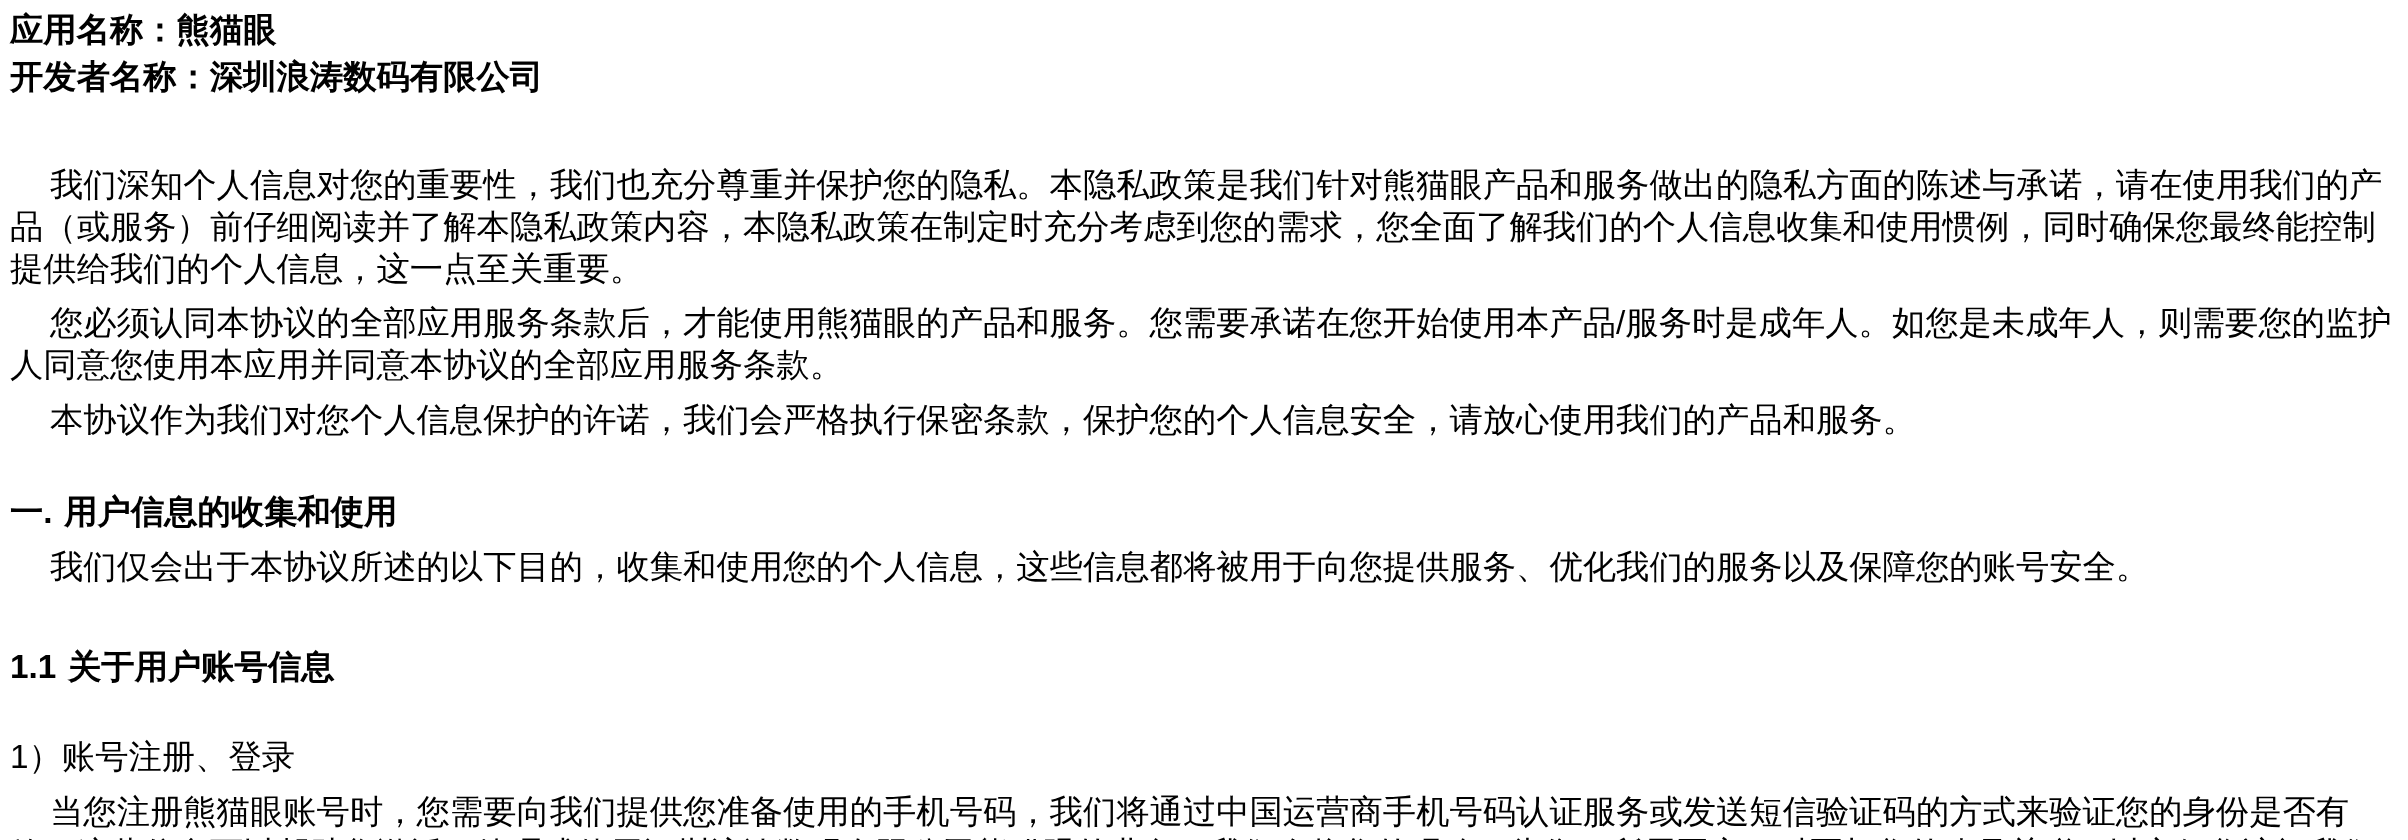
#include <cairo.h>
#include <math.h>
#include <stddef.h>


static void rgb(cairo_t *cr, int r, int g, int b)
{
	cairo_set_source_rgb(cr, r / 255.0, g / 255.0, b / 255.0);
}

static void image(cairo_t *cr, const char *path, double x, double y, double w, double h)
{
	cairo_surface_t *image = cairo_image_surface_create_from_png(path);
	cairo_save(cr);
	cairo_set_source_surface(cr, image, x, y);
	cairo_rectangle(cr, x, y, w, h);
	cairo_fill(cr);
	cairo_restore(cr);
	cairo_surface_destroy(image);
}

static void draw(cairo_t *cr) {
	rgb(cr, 255, 255, 255);
	cairo_paint(cr);
	image(cr, "image0.png", 9, 12, 2381, 828);
}

int main(void) {
	cairo_surface_t *surface = cairo_image_surface_create(CAIRO_FORMAT_RGB24, 2408, 840);
	cairo_t *cr = cairo_create(surface);
	cairo_font_options_t *options = cairo_font_options_create();
	cairo_font_options_set_hint_metrics(options, CAIRO_HINT_METRICS_OFF);
	cairo_font_options_set_hint_style(options, CAIRO_HINT_STYLE_NONE);
	cairo_set_font_options(cr, options);
	cairo_set_miter_limit(cr, 4);
	draw(cr);
	cairo_surface_write_to_png(surface, "render.png");
	cairo_font_options_destroy(options);
	cairo_destroy(cr);
	cairo_surface_destroy(surface);
	return 0;
}
